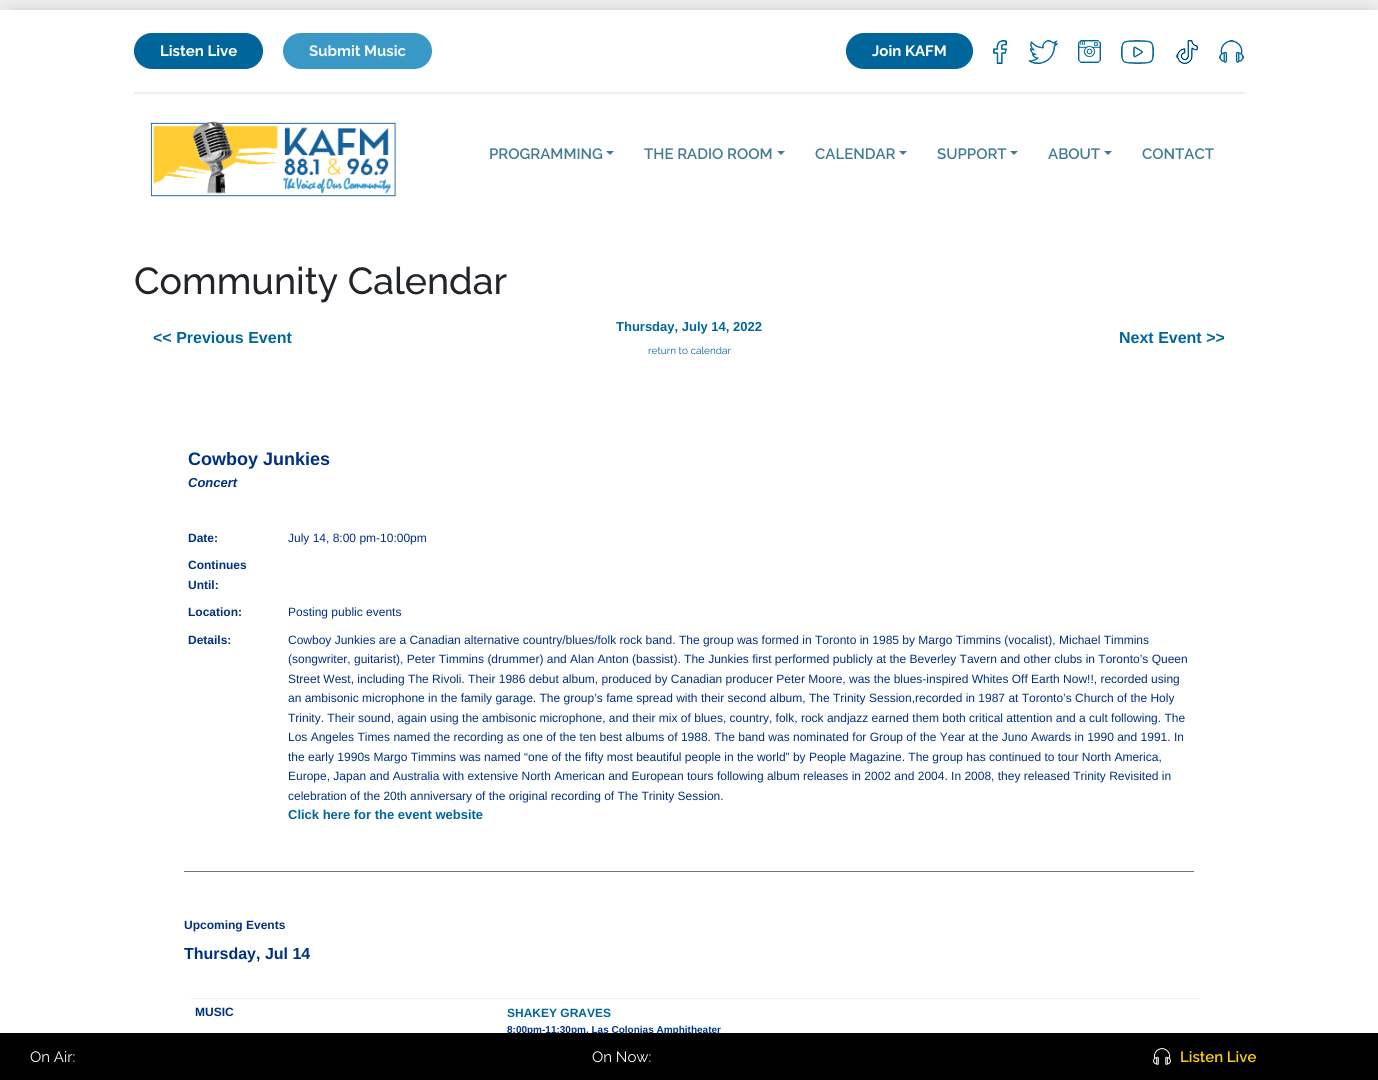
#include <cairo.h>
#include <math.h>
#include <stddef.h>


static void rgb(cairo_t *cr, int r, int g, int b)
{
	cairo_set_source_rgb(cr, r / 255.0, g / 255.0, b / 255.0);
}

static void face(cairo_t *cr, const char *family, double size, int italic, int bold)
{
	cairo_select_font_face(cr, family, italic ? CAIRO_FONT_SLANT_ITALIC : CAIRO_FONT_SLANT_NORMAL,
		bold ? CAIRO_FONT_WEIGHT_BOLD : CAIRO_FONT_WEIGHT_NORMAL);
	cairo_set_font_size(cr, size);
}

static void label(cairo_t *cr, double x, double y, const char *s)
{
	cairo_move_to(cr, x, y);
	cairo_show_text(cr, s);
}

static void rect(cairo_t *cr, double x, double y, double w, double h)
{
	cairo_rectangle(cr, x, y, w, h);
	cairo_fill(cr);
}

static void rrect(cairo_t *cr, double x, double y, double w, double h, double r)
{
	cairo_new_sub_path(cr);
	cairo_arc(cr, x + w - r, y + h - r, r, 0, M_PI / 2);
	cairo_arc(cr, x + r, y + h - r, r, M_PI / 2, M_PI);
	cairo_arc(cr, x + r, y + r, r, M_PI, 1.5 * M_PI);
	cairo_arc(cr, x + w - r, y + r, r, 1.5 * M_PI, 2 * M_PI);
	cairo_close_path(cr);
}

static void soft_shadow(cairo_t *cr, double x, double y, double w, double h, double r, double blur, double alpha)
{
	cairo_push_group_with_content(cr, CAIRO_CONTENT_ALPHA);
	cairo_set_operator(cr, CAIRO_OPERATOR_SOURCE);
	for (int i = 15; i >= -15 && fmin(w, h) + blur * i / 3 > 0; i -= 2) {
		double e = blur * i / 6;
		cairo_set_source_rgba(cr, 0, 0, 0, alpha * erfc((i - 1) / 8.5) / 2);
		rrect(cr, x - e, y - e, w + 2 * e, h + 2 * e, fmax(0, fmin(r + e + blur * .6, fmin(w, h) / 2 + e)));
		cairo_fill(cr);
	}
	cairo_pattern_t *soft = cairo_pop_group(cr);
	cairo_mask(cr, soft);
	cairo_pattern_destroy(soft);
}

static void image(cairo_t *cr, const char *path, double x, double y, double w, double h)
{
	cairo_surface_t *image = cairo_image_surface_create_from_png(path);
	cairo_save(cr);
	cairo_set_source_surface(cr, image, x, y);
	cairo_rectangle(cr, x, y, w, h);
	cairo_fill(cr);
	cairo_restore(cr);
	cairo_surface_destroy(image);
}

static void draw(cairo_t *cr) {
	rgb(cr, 238, 238, 238);
	cairo_paint(cr);
	rgb(cr, 131, 131, 131);
	soft_shadow(cr, 10, 20, 1358, 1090, 0, 10, 1);
	rgb(cr, 255, 255, 255);
	rect(cr, 0, 10, 1378, 1023);
	rgb(cr, 238, 238, 238);
	rect(cr, 134, 92, 1110, 2);
	rgb(cr, 0, 101, 155);
	rrect(cr, 134.5, 33.5, 128, 35, 17.5);
	cairo_fill_preserve(cr);
	cairo_set_line_width(cr, 1);
	cairo_stroke(cr);
	face(cr, "Raleway", 15, 0, 1);
	rgb(cr, 255, 255, 255);
	label(cr, 160, 56, "Listen Live");
	rgb(cr, 57, 152, 198);
	rrect(cr, 283, 33, 149, 36, 18);
	cairo_fill(cr);
	rgb(cr, 240, 248, 255);
	label(cr, 309, 56, "Submit Music");
	rgb(cr, 0, 101, 155);
	rrect(cr, 846.5, 33.5, 126, 35, 17.5);
	cairo_fill_preserve(cr);
	cairo_stroke(cr);
	rgb(cr, 255, 255, 255);
	label(cr, 872, 56, "Join KAFM");
	image(cr, "image0.png", 993, 40, 14, 24);
	image(cr, "image1.png", 1028, 40, 30, 24);
	image(cr, "image2.png", 1078, 40, 23, 23);
	image(cr, "image3.png", 1121, 40, 33, 24);
	image(cr, "image4.png", 1176, 40, 22, 24);
	image(cr, "image5.png", 1219, 40, 25, 23);
	image(cr, "image6.png", 150, 121, 247, 76);
	face(cr, "Raleway SemiBold", 15, 0, 0);
	rgb(cr, 67, 124, 146);
	label(cr, 489, 159, "PROGRAMMING");
	cairo_new_path(cr);
	cairo_move_to(cr, 606, 151);
	cairo_line_to(cr, 614, 151);
	cairo_line_to(cr, 610, 155);
	cairo_close_path(cr);
	cairo_fill(cr);
	label(cr, 644, 159, "THE RADIO ROOM");
	cairo_new_path(cr);
	cairo_move_to(cr, 777, 151);
	cairo_line_to(cr, 785, 151);
	cairo_line_to(cr, 781, 155);
	cairo_close_path(cr);
	cairo_fill(cr);
	label(cr, 815, 159, "CALENDAR");
	cairo_new_path(cr);
	cairo_move_to(cr, 899, 151);
	cairo_line_to(cr, 907, 151);
	cairo_line_to(cr, 903, 155);
	cairo_close_path(cr);
	cairo_fill(cr);
	label(cr, 937, 159, "SUPPORT");
	cairo_new_path(cr);
	cairo_move_to(cr, 1010, 151);
	cairo_line_to(cr, 1018, 151);
	cairo_line_to(cr, 1014, 155);
	cairo_close_path(cr);
	cairo_fill(cr);
	label(cr, 1048, 159, "ABOUT");
	cairo_new_path(cr);
	cairo_move_to(cr, 1104, 151);
	cairo_line_to(cr, 1112, 151);
	cairo_line_to(cr, 1108, 155);
	cairo_close_path(cr);
	cairo_fill(cr);
	label(cr, 1142, 159, "CONTACT");
	face(cr, "Raleway Medium", 37.5, 0, 0);
	rgb(cr, 33, 37, 41);
	label(cr, 134, 294, "Community Calendar");
	face(cr, "Liberation Sans", 16, 0, 1);
	rgb(cr, 0, 101, 155);
	label(cr, 153, 343, "<< Previous Event");
	face(cr, "Liberation Sans", 13, 0, 1);
	label(cr, 616, 331, "Thursday, July 14, 2022");
	face(cr, "Raleway", 10, 0, 0);
	label(cr, 648, 354, "return to calendar");
	face(cr, "Liberation Sans", 16, 0, 1);
	label(cr, 1119, 343, "Next Event >>");
	face(cr, "Liberation Sans", 18, 0, 1);
	rgb(cr, 0, 48, 128);
	label(cr, 188, 465, "Cowboy Junkies");
	face(cr, "Liberation Sans", 13, 1, 1);
	label(cr, 188, 487, "Concert");
	face(cr, "Liberation Sans", 12, 0, 1);
	label(cr, 188, 542, "Date:");
	face(cr, "Liberation Sans", 12, 0, 0);
	label(cr, 288, 542, "July 14, 8:00 pm-10:00pm");
	face(cr, "Liberation Sans", 12, 0, 1);
	label(cr, 188, 569, "Continues");
	label(cr, 188, 589, "Until:");
	label(cr, 188, 616, "Location:");
	face(cr, "Liberation Sans", 12, 0, 0);
	label(cr, 288, 616, "Posting public events");
	face(cr, "Liberation Sans", 12, 0, 1);
	label(cr, 188, 644, "Details:");
	face(cr, "Liberation Sans", 12, 0, 0);
	label(cr, 288, 644, "Cowboy Junkies are a Canadian alternative country/blues/folk rock band. The group was formed in Toronto in 1985 by Margo Timmins (vocalist), Michael Timmins");
	label(cr, 288, 663, "(songwriter, guitarist), Peter Timmins (drummer) and Alan Anton (bassist). The Junkies first performed publicly at the Beverley Tavern and other clubs in Toronto’s Queen");
	label(cr, 288, 683, "Street West, including The Rivoli. Their 1986 debut album, produced by Canadian producer Peter Moore, was the blues-inspired Whites Off Earth Now!!, recorded using");
	label(cr, 288, 702, "an ambisonic microphone in the family garage. The group’s fame spread with their second album, The Trinity Session,recorded in 1987 at Toronto’s Church of the Holy");
	label(cr, 288, 722, "Trinity. Their sound, again using the ambisonic microphone, and their mix of blues, country, folk, rock andjazz earned them both critical attention and a cult following. The");
	label(cr, 288, 741, "Los Angeles Times named the recording as one of the ten best albums of 1988. The band was nominated for Group of the Year at the Juno Awards in 1990 and 1991. In");
	label(cr, 288, 761, "the early 1990s Margo Timmins was named “one of the fifty most beautiful people in the world” by People Magazine. The group has continued to tour North America,");
	label(cr, 288, 780, "Europe, Japan and Australia with extensive North American and European tours following album releases in 2002 and 2004. In 2008, they released Trinity Revisited in");
	label(cr, 288, 800, "celebration of the 20th anniversary of the original recording of The Trinity Session.");
	face(cr, "Liberation Sans", 13, 0, 1);
	rgb(cr, 0, 101, 155);
	label(cr, 288, 819, "Click here for the event website");
	rgb(cr, 115, 115, 115);
	rect(cr, 184, 871, 1010, 1);
	face(cr, "Liberation Sans", 12, 0, 1);
	rgb(cr, 0, 48, 128);
	label(cr, 184, 929, "Upcoming Events");
	face(cr, "Liberation Sans", 16, 0, 1);
	label(cr, 184, 959, "Thursday, Jul 14");
	rgb(cr, 238, 238, 238);
	rect(cr, 191, 998, 1008, 1);
	face(cr, "Liberation Sans", 12, 0, 1);
	rgb(cr, 0, 48, 128);
	label(cr, 195, 1016, "MUSIC");
	rgb(cr, 0, 101, 155);
	label(cr, 507, 1017, "SHAKEY GRAVES");
	face(cr, "Liberation Sans", 10, 0, 1);
	rgb(cr, 0, 48, 128);
	label(cr, 507, 1033, "8:00pm-11:30pm, Las Colonias Amphitheater");
	rgb(cr, 0, 0, 0);
	rect(cr, 0, 1033, 1378, 47);
	face(cr, "Raleway", 15, 0, 0);
	rgb(cr, 255, 255, 255);
	label(cr, 30, 1062, "On Air:");
	label(cr, 592, 1062, "On Now:");
	image(cr, "image7.png", 1153, 1048, 18, 17);
	face(cr, "Raleway SemiBold", 15, 0, 0);
	rgb(cr, 255, 205, 16);
	label(cr, 1180, 1062, "Listen Live");
}

int main(void) {
	cairo_surface_t *surface = cairo_image_surface_create(CAIRO_FORMAT_RGB24, 1378, 1080);
	cairo_t *cr = cairo_create(surface);
	cairo_font_options_t *options = cairo_font_options_create();
	cairo_font_options_set_hint_metrics(options, CAIRO_HINT_METRICS_OFF);
	cairo_font_options_set_hint_style(options, CAIRO_HINT_STYLE_NONE);
	cairo_set_font_options(cr, options);
	cairo_set_miter_limit(cr, 4);
	draw(cr);
	cairo_surface_write_to_png(surface, "render.png");
	cairo_font_options_destroy(options);
	cairo_destroy(cr);
	cairo_surface_destroy(surface);
	return 0;
}
